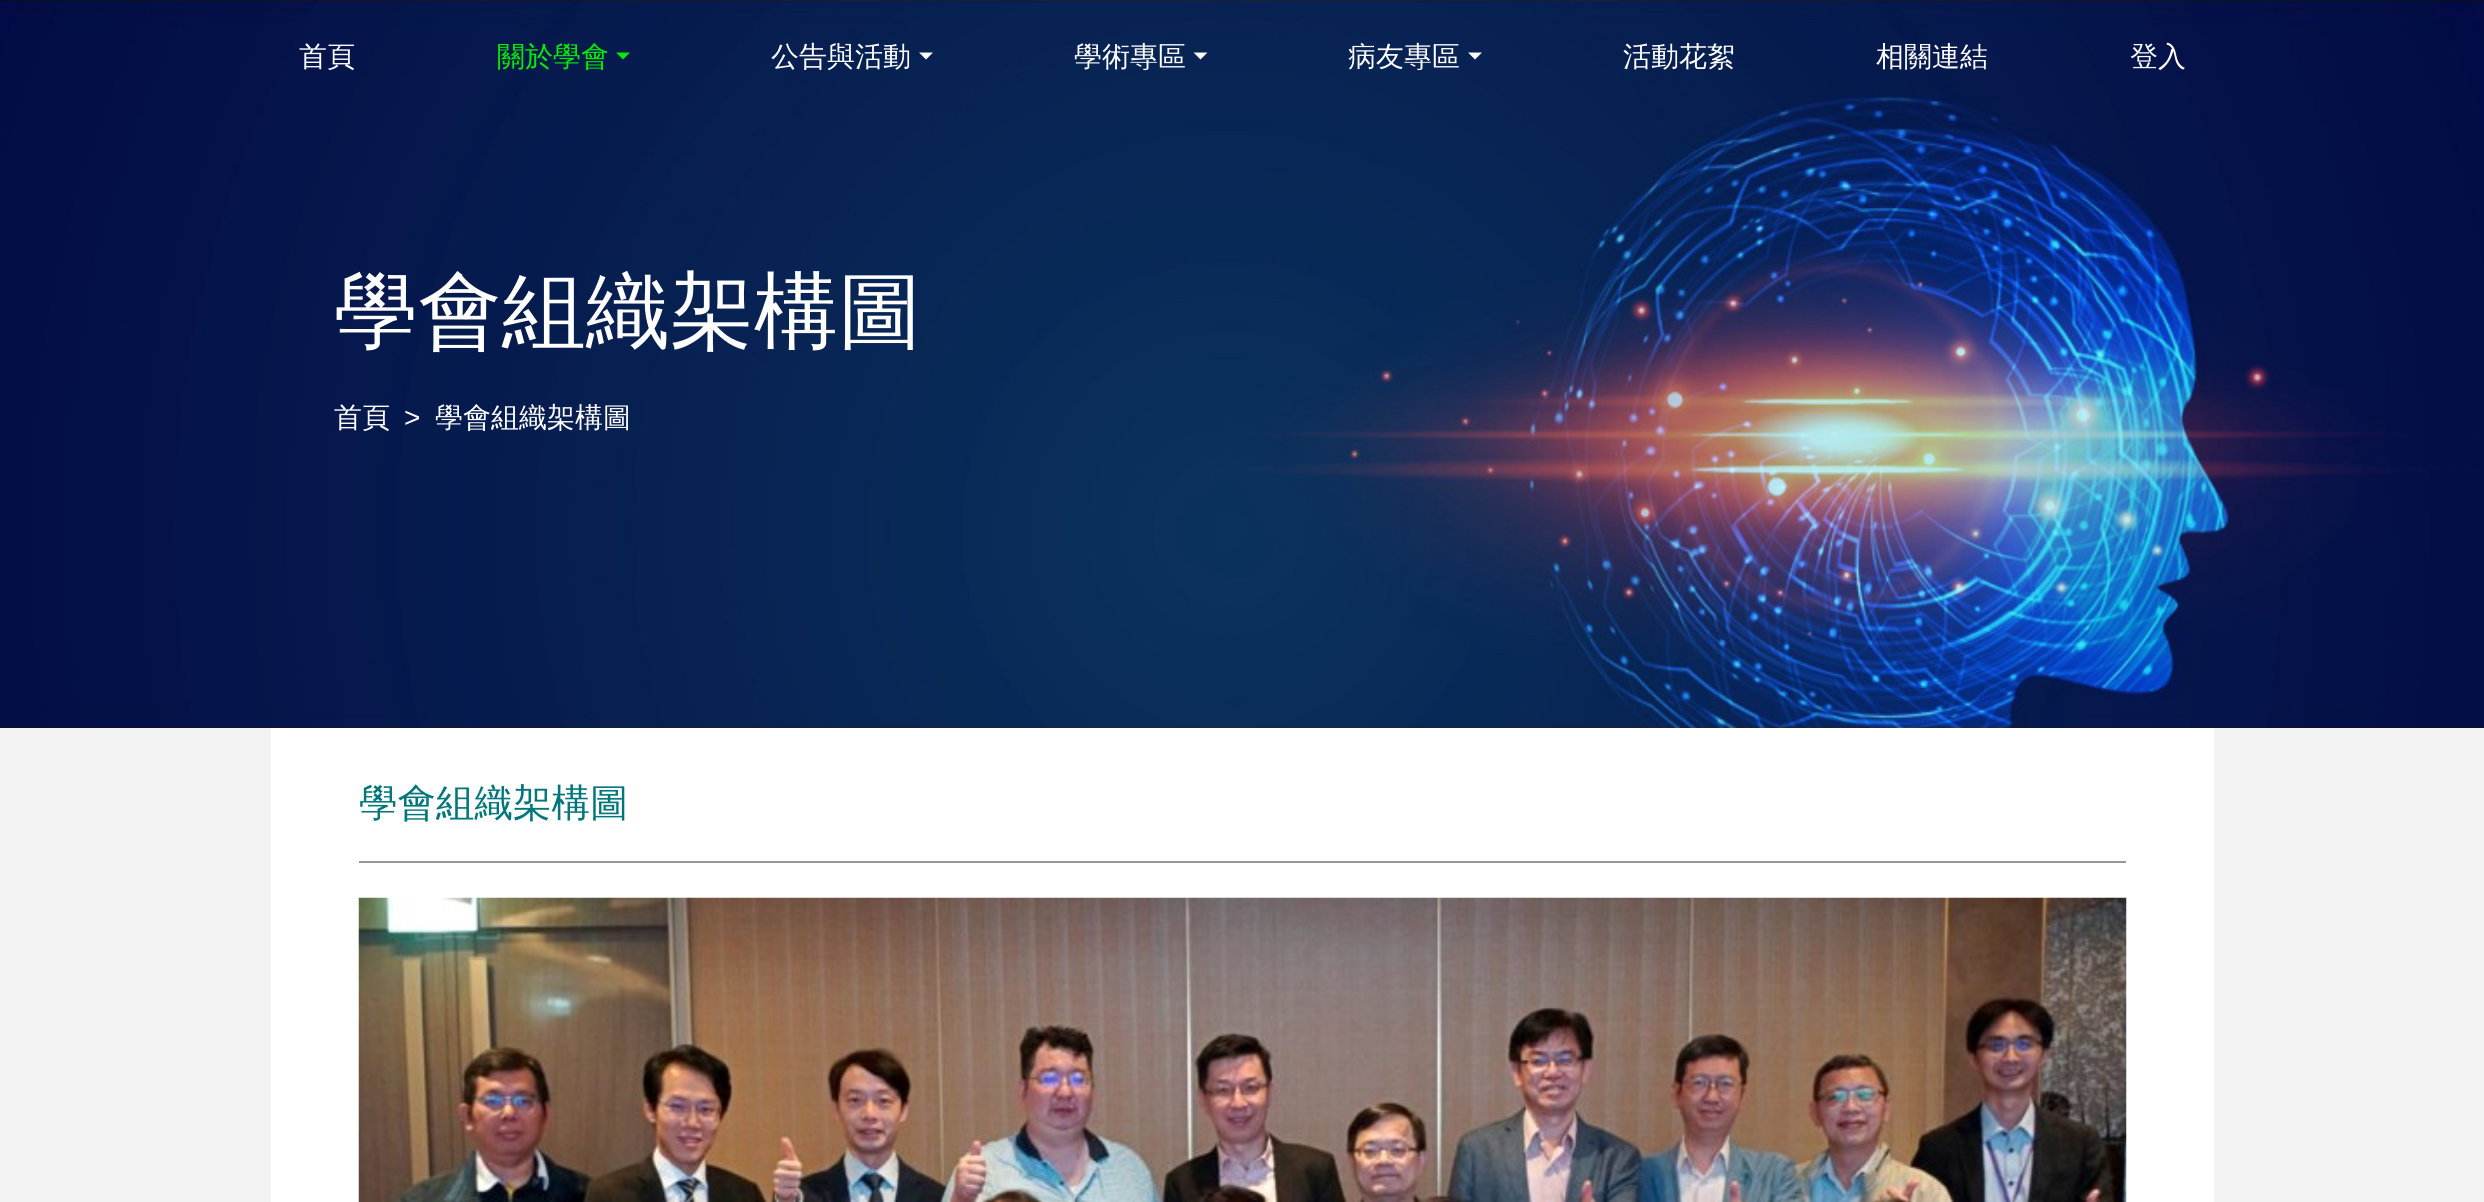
#include <cairo.h>
#include <math.h>
#include <stddef.h>


static void rgb(cairo_t *cr, int r, int g, int b)
{
	cairo_set_source_rgb(cr, r / 255.0, g / 255.0, b / 255.0);
}

static void face(cairo_t *cr, const char *family, double size, int italic, int bold)
{
	cairo_select_font_face(cr, family, italic ? CAIRO_FONT_SLANT_ITALIC : CAIRO_FONT_SLANT_NORMAL,
		bold ? CAIRO_FONT_WEIGHT_BOLD : CAIRO_FONT_WEIGHT_NORMAL);
	cairo_set_font_size(cr, size);
}

static void label(cairo_t *cr, double x, double y, const char *s)
{
	cairo_move_to(cr, x, y);
	cairo_show_text(cr, s);
}

static void rect(cairo_t *cr, double x, double y, double w, double h)
{
	cairo_rectangle(cr, x, y, w, h);
	cairo_fill(cr);
}

static void image(cairo_t *cr, const char *path, double x, double y, double w, double h)
{
	cairo_surface_t *image = cairo_image_surface_create_from_png(path);
	cairo_save(cr);
	cairo_set_source_surface(cr, image, x, y);
	cairo_rectangle(cr, x, y, w, h);
	cairo_fill(cr);
	cairo_restore(cr);
	cairo_surface_destroy(image);
}

static void draw(cairo_t *cr) {
	rgb(cr, 243, 243, 243);
	cairo_paint(cr);
	image(cr, "image0.png", 0, 0, 2484, 728);
	face(cr, "WenQuanYi Zen Hei Medium", 28, 0, 0);
	rgb(cr, 255, 255, 255);
	label(cr, 299, 66, "首頁");
	rgb(cr, 1, 236, 5);
	label(cr, 497, 66, "關於學會");
	cairo_new_path(cr);
	cairo_move_to(cr, 616, 52.5);
	cairo_line_to(cr, 630, 52.5);
	cairo_line_to(cr, 623, 59.5);
	cairo_close_path(cr);
	cairo_fill(cr);
	rgb(cr, 255, 255, 255);
	label(cr, 771, 66, "公告與活動");
	cairo_new_path(cr);
	cairo_move_to(cr, 919, 52.5);
	cairo_line_to(cr, 933, 52.5);
	cairo_line_to(cr, 926, 59.5);
	cairo_close_path(cr);
	cairo_fill(cr);
	label(cr, 1074, 66, "學術專區");
	cairo_new_path(cr);
	cairo_move_to(cr, 1193.5, 52.5);
	cairo_line_to(cr, 1207.5, 52.5);
	cairo_line_to(cr, 1200.5, 59.5);
	cairo_close_path(cr);
	cairo_fill(cr);
	label(cr, 1348, 66, "病友專區");
	cairo_new_path(cr);
	cairo_move_to(cr, 1468, 52.5);
	cairo_line_to(cr, 1482, 52.5);
	cairo_line_to(cr, 1475, 59.5);
	cairo_close_path(cr);
	cairo_fill(cr);
	label(cr, 1623, 66, "活動花絮");
	label(cr, 1876, 66, "相關連結");
	label(cr, 2130, 66, "登入");
	face(cr, "WenQuanYi Zen Hei Medium", 84, 0, 0);
	label(cr, 334, 340, "學會組織架構圖");
	face(cr, "WenQuanYi Zen Hei Medium", 28, 0, 0);
	label(cr, 334, 427, "首頁");
	face(cr, "Liberation Sans", 28, 0, 0);
	label(cr, 404, 427, ">");
	face(cr, "WenQuanYi Zen Hei Medium", 28, 0, 0);
	label(cr, 435, 427, "學會組織架構圖");
	rect(cr, 271, 728, 1943, 474);
	face(cr, "WenQuanYi Zen Hei Medium", 38.5, 0, 0);
	rgb(cr, 0, 118, 122);
	label(cr, 359, 816, "學會組織架構圖");
	rgb(cr, 151, 151, 151);
	rect(cr, 359, 861, 1767, 2);
	image(cr, "image1.png", 358, 897, 1769, 305);
}

int main(void) {
	cairo_surface_t *surface = cairo_image_surface_create(CAIRO_FORMAT_RGB24, 2484, 1202);
	cairo_t *cr = cairo_create(surface);
	cairo_font_options_t *options = cairo_font_options_create();
	cairo_font_options_set_hint_metrics(options, CAIRO_HINT_METRICS_OFF);
	cairo_font_options_set_hint_style(options, CAIRO_HINT_STYLE_NONE);
	cairo_set_font_options(cr, options);
	cairo_set_miter_limit(cr, 4);
	draw(cr);
	cairo_surface_write_to_png(surface, "render.png");
	cairo_font_options_destroy(options);
	cairo_destroy(cr);
	cairo_surface_destroy(surface);
	return 0;
}
